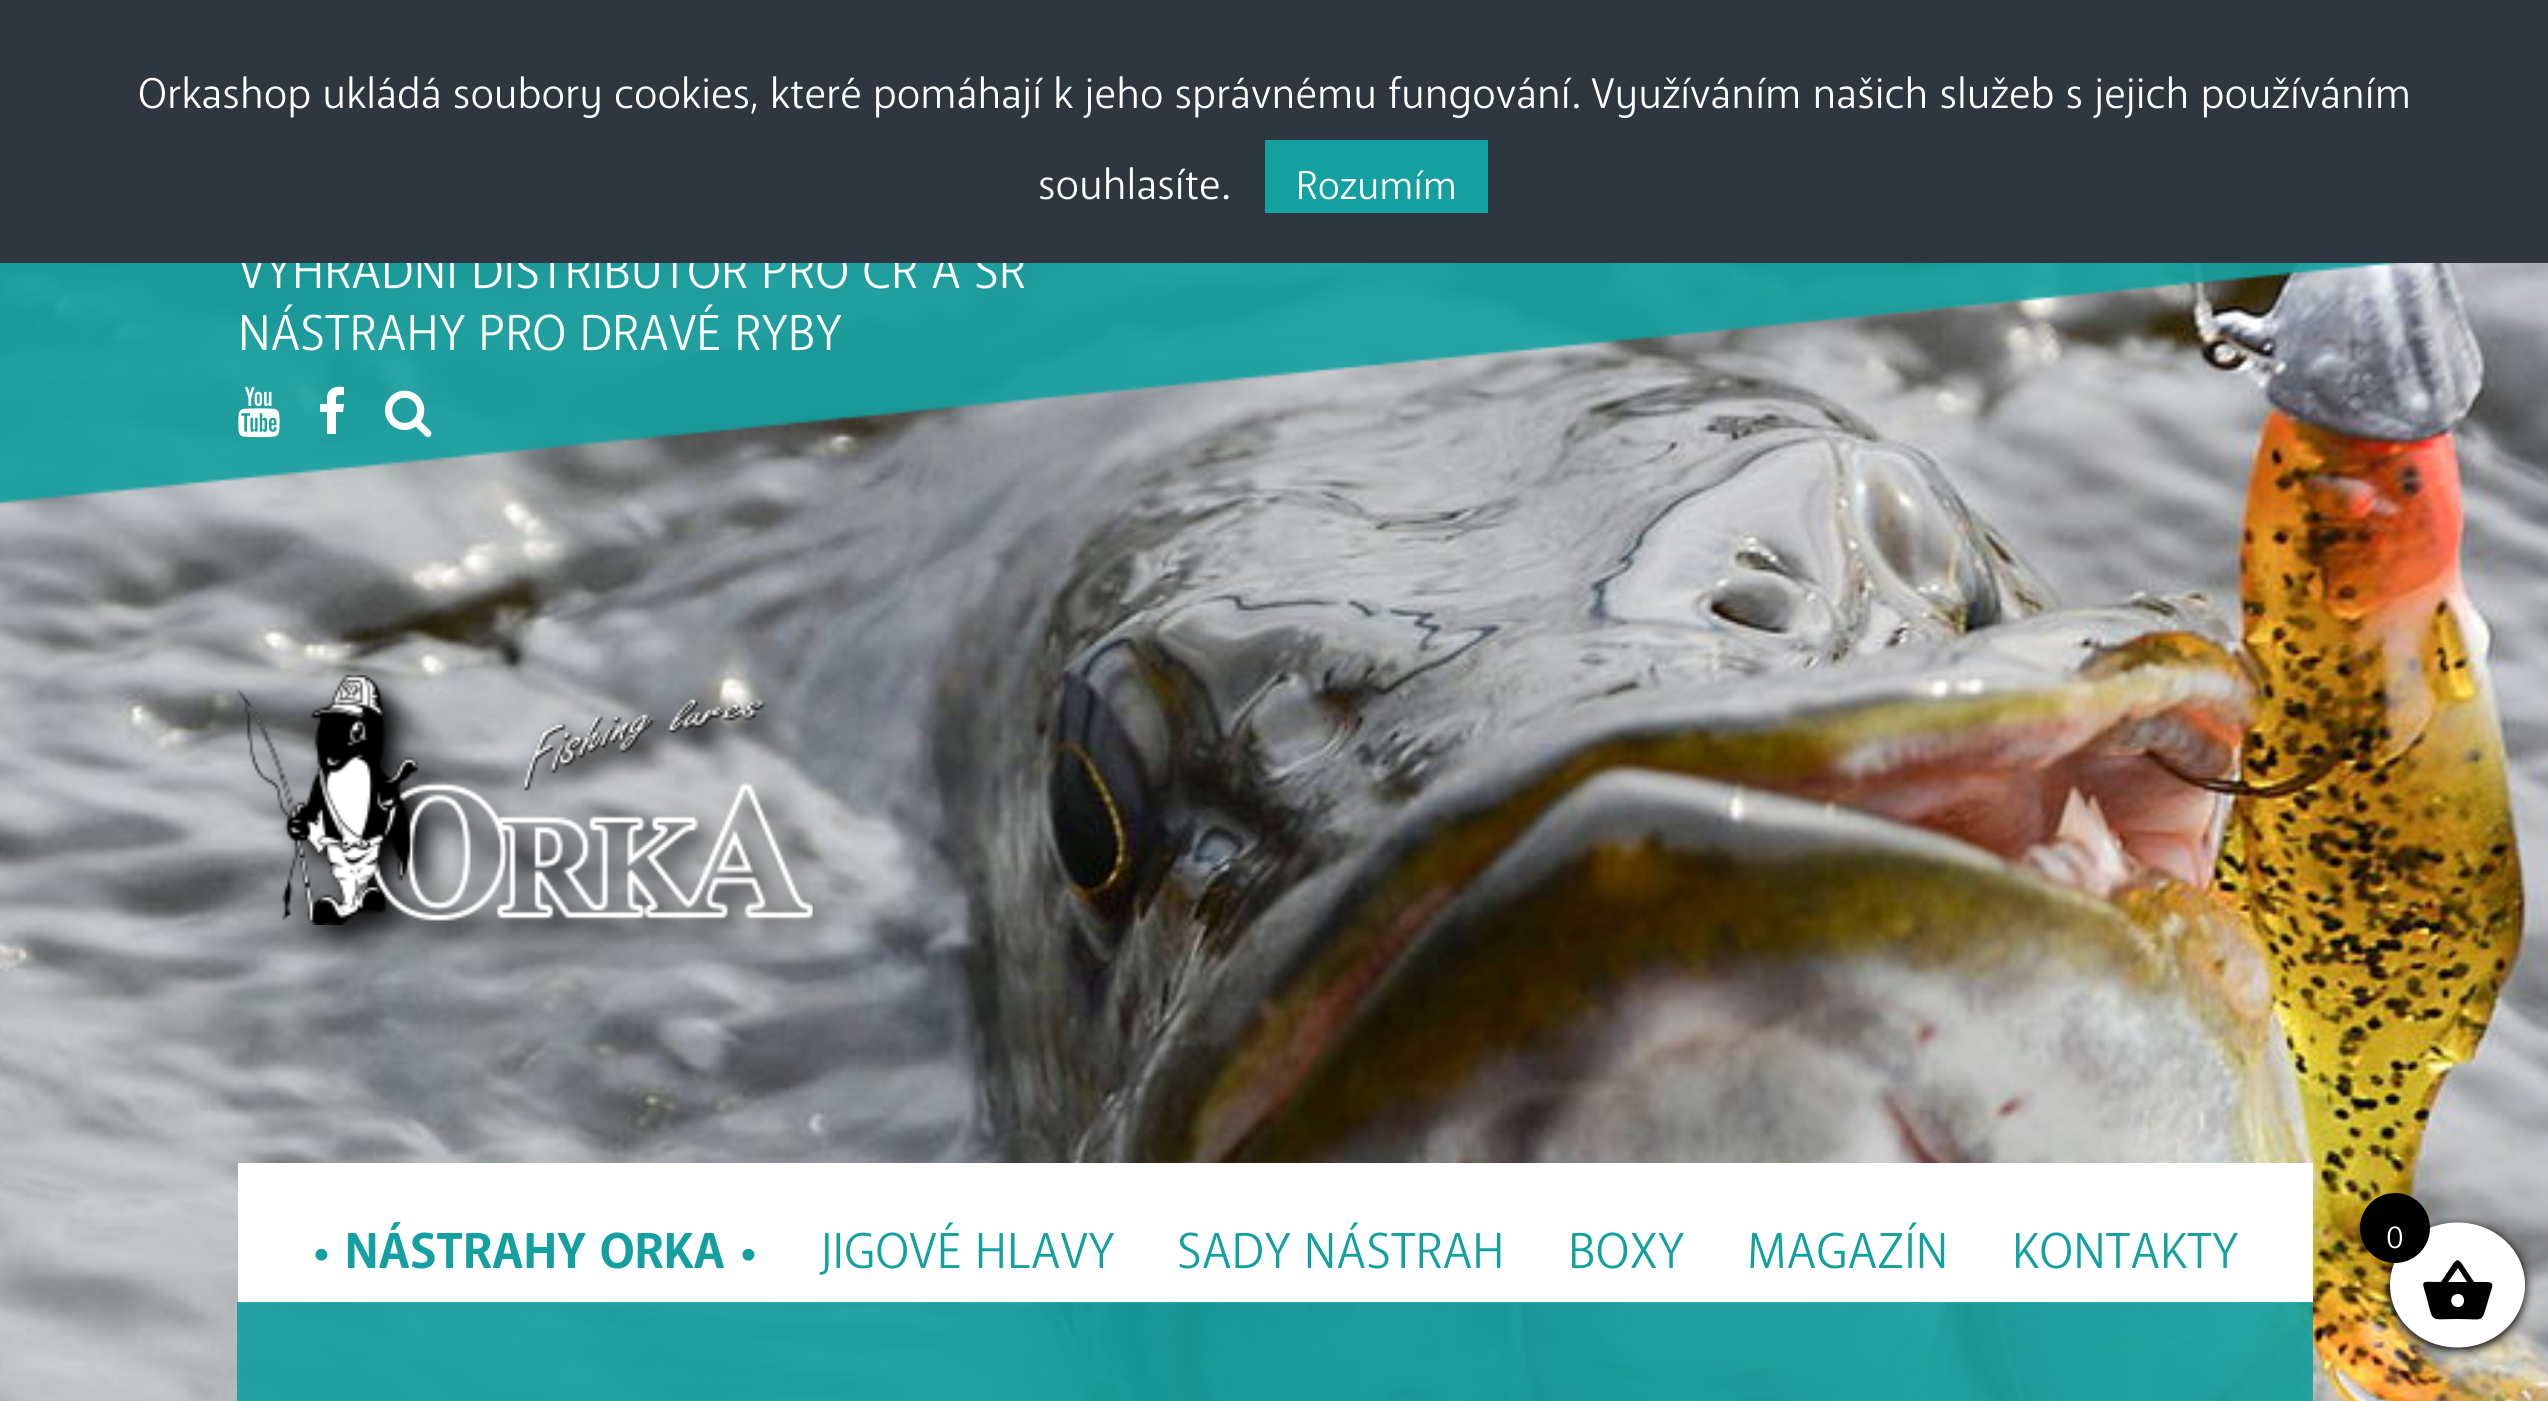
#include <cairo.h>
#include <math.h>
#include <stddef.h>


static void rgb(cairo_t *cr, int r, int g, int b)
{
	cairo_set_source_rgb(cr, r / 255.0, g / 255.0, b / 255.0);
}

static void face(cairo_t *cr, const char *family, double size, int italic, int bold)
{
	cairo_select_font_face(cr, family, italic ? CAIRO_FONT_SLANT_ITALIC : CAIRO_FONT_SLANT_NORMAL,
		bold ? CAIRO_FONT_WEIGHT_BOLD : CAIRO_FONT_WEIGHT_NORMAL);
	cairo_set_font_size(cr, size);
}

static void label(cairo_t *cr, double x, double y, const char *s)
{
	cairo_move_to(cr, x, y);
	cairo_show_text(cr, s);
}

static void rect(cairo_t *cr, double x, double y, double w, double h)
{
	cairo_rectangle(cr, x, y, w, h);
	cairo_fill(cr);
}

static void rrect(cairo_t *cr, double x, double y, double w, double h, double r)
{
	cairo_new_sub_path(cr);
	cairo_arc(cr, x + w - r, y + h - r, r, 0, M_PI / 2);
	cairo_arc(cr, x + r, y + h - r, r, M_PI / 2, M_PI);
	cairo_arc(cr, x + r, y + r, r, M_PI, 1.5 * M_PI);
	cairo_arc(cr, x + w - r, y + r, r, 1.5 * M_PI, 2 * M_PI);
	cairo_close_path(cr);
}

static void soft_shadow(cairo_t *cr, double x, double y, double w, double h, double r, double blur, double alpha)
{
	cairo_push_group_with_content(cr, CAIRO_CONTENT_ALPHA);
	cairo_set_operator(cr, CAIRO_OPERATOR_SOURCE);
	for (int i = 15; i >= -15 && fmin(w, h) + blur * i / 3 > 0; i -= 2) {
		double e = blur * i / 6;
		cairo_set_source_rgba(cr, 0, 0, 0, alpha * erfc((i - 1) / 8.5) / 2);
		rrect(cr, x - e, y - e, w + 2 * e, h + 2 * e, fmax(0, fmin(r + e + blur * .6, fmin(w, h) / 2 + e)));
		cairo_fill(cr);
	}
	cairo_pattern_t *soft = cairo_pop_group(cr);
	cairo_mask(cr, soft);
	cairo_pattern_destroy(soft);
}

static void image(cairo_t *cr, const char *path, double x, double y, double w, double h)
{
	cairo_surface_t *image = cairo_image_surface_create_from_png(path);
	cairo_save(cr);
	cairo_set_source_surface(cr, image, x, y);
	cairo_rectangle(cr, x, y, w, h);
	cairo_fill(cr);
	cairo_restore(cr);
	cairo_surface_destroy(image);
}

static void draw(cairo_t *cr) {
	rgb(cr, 255, 255, 255);
	cairo_paint(cr);
	image(cr, "image4.png", 0, 263, 2548, 1138);
	image(cr, "image0.png", 0, 263, 2420, 241);
	face(cr, "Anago", 50, 0, 0);
	rgb(cr, 255, 255, 255);
	label(cr, 238, 288, "VÝHRADNÍ DISTRIBUTOR PRO ČR A SR");
	rgb(cr, 46, 54, 63);
	rect(cr, 0, 0, 2548, 263);
	face(cr, "Anago", 42.5, 0, 0);
	rgb(cr, 255, 255, 255);
	label(cr, 138, 108, "Orkashop ukládá soubory cookies, které pomáhají k jeho správnému fungování. Využíváním našich služeb s jejich používáním");
	label(cr, 1038, 199, "souhlasíte.");
	rgb(cr, 20, 160, 160);
	rect(cr, 1265, 140, 223, 73);
	face(cr, "Anago", 40, 0, 0);
	rgb(cr, 255, 255, 255);
	label(cr, 1296, 199, "Rozumím");
	face(cr, "Anago", 50, 0, 0);
	label(cr, 238, 350, "NÁSTRAHY PRO DRAVÉ RYBY");
	image(cr, "image1.png", 238, 387, 42, 51);
	cairo_new_path(cr);
	cairo_move_to(cr, 344, 387);
	cairo_line_to(cr, 344, 395);
	cairo_curve_to(cr, 335, 395, 336, 395, 336, 404);
	cairo_line_to(cr, 344, 404);
	cairo_line_to(cr, 343, 412);
	cairo_line_to(cr, 336, 412);
	cairo_line_to(cr, 336, 434);
	cairo_line_to(cr, 327, 434);
	cairo_line_to(cr, 327, 412);
	cairo_line_to(cr, 320, 412);
	cairo_line_to(cr, 320, 404);
	cairo_line_to(cr, 327, 404);
	cairo_line_to(cr, 327, 396);
	cairo_curve_to(cr, 329, 387, 337, 386, 344, 387);
	cairo_close_path(cr);
	cairo_fill(cr);
	image(cr, "image2.png", 385, 390, 47, 48);
	image(cr, "image3.png", 237, 666, 606, 293);
	rect(cr, 238, 1163, 2075, 140);
	face(cr, "Anago", 50, 0, 1);
	rgb(cr, 20, 160, 160);
	label(cr, 312, 1268, "• NÁSTRAHY ORKA •");
	face(cr, "Anago", 50, 0, 0);
	label(cr, 821, 1268, "JIGOVÉ HLAVY");
	label(cr, 1177, 1268, "SADY NÁSTRAH");
	label(cr, 1568, 1268, "BOXY");
	label(cr, 1747, 1268, "MAGAZÍN");
	label(cr, 2012, 1268, "KONTAKTY");
	cairo_set_source_rgba(cr, 0.078, 0.627, 0.627, 0.9);
	rect(cr, 237, 1302, 2076, 99);
	rgb(cr, 0, 0, 0);
	soft_shadow(cr, 2390, 1225, 135, 125, 62.5, 5, 1);
	rgb(cr, 255, 255, 255);
	cairo_new_path(cr);
	cairo_move_to(cr, 2457.5, 1222.5);
	cairo_curve_to(cr, 2495, 1222.5, 2525, 1250.5, 2525, 1285);
	cairo_curve_to(cr, 2525, 1319.5, 2495, 1347.5, 2457.5, 1347.5);
	cairo_curve_to(cr, 2420, 1347.5, 2390, 1319.5, 2390, 1285);
	cairo_curve_to(cr, 2390, 1250.5, 2420, 1222.5, 2457.5, 1222.5);
	cairo_close_path(cr);
	cairo_fill(cr);
	rgb(cr, 0, 0, 0);
	cairo_arc(cr, 2395, 1228, 35, 0, 2 * M_PI);
	cairo_fill(cr);
	face(cr, "Anago", 32, 0, 0);
	rgb(cr, 255, 255, 255);
	label(cr, 2386, 1248, "0");
	rgb(cr, 0, 0, 0);
	cairo_new_path(cr);
	cairo_move_to(cr, 2458, 1307);
	cairo_curve_to(cr, 2466, 1307, 2466, 1294, 2458, 1294);
	cairo_curve_to(cr, 2449, 1294, 2449, 1307, 2458, 1307);
	cairo_close_path(cr);
	cairo_move_to(cr, 2448, 1282);
	cairo_line_to(cr, 2467, 1282);
	cairo_line_to(cr, 2458, 1268);
	cairo_close_path(cr);
	cairo_move_to(cr, 2474, 1282);
	cairo_curve_to(cr, 2497, 1282, 2494, 1280, 2488, 1301);
	cairo_curve_to(cr, 2481, 1324, 2485, 1319, 2458, 1319);
	cairo_curve_to(cr, 2428, 1319, 2434, 1324, 2426, 1295);
	cairo_curve_to(cr, 2421, 1279, 2421, 1282, 2441, 1282);
	cairo_curve_to(cr, 2461, 1253, 2454, 1253, 2474, 1282);
	cairo_close_path(cr);
	cairo_fill(cr);
}

int main(void) {
	cairo_surface_t *surface = cairo_image_surface_create(CAIRO_FORMAT_RGB24, 2548, 1401);
	cairo_t *cr = cairo_create(surface);
	cairo_font_options_t *options = cairo_font_options_create();
	cairo_font_options_set_hint_metrics(options, CAIRO_HINT_METRICS_OFF);
	cairo_font_options_set_hint_style(options, CAIRO_HINT_STYLE_NONE);
	cairo_set_font_options(cr, options);
	cairo_set_miter_limit(cr, 4);
	draw(cr);
	cairo_surface_write_to_png(surface, "render.png");
	cairo_font_options_destroy(options);
	cairo_destroy(cr);
	cairo_surface_destroy(surface);
	return 0;
}
